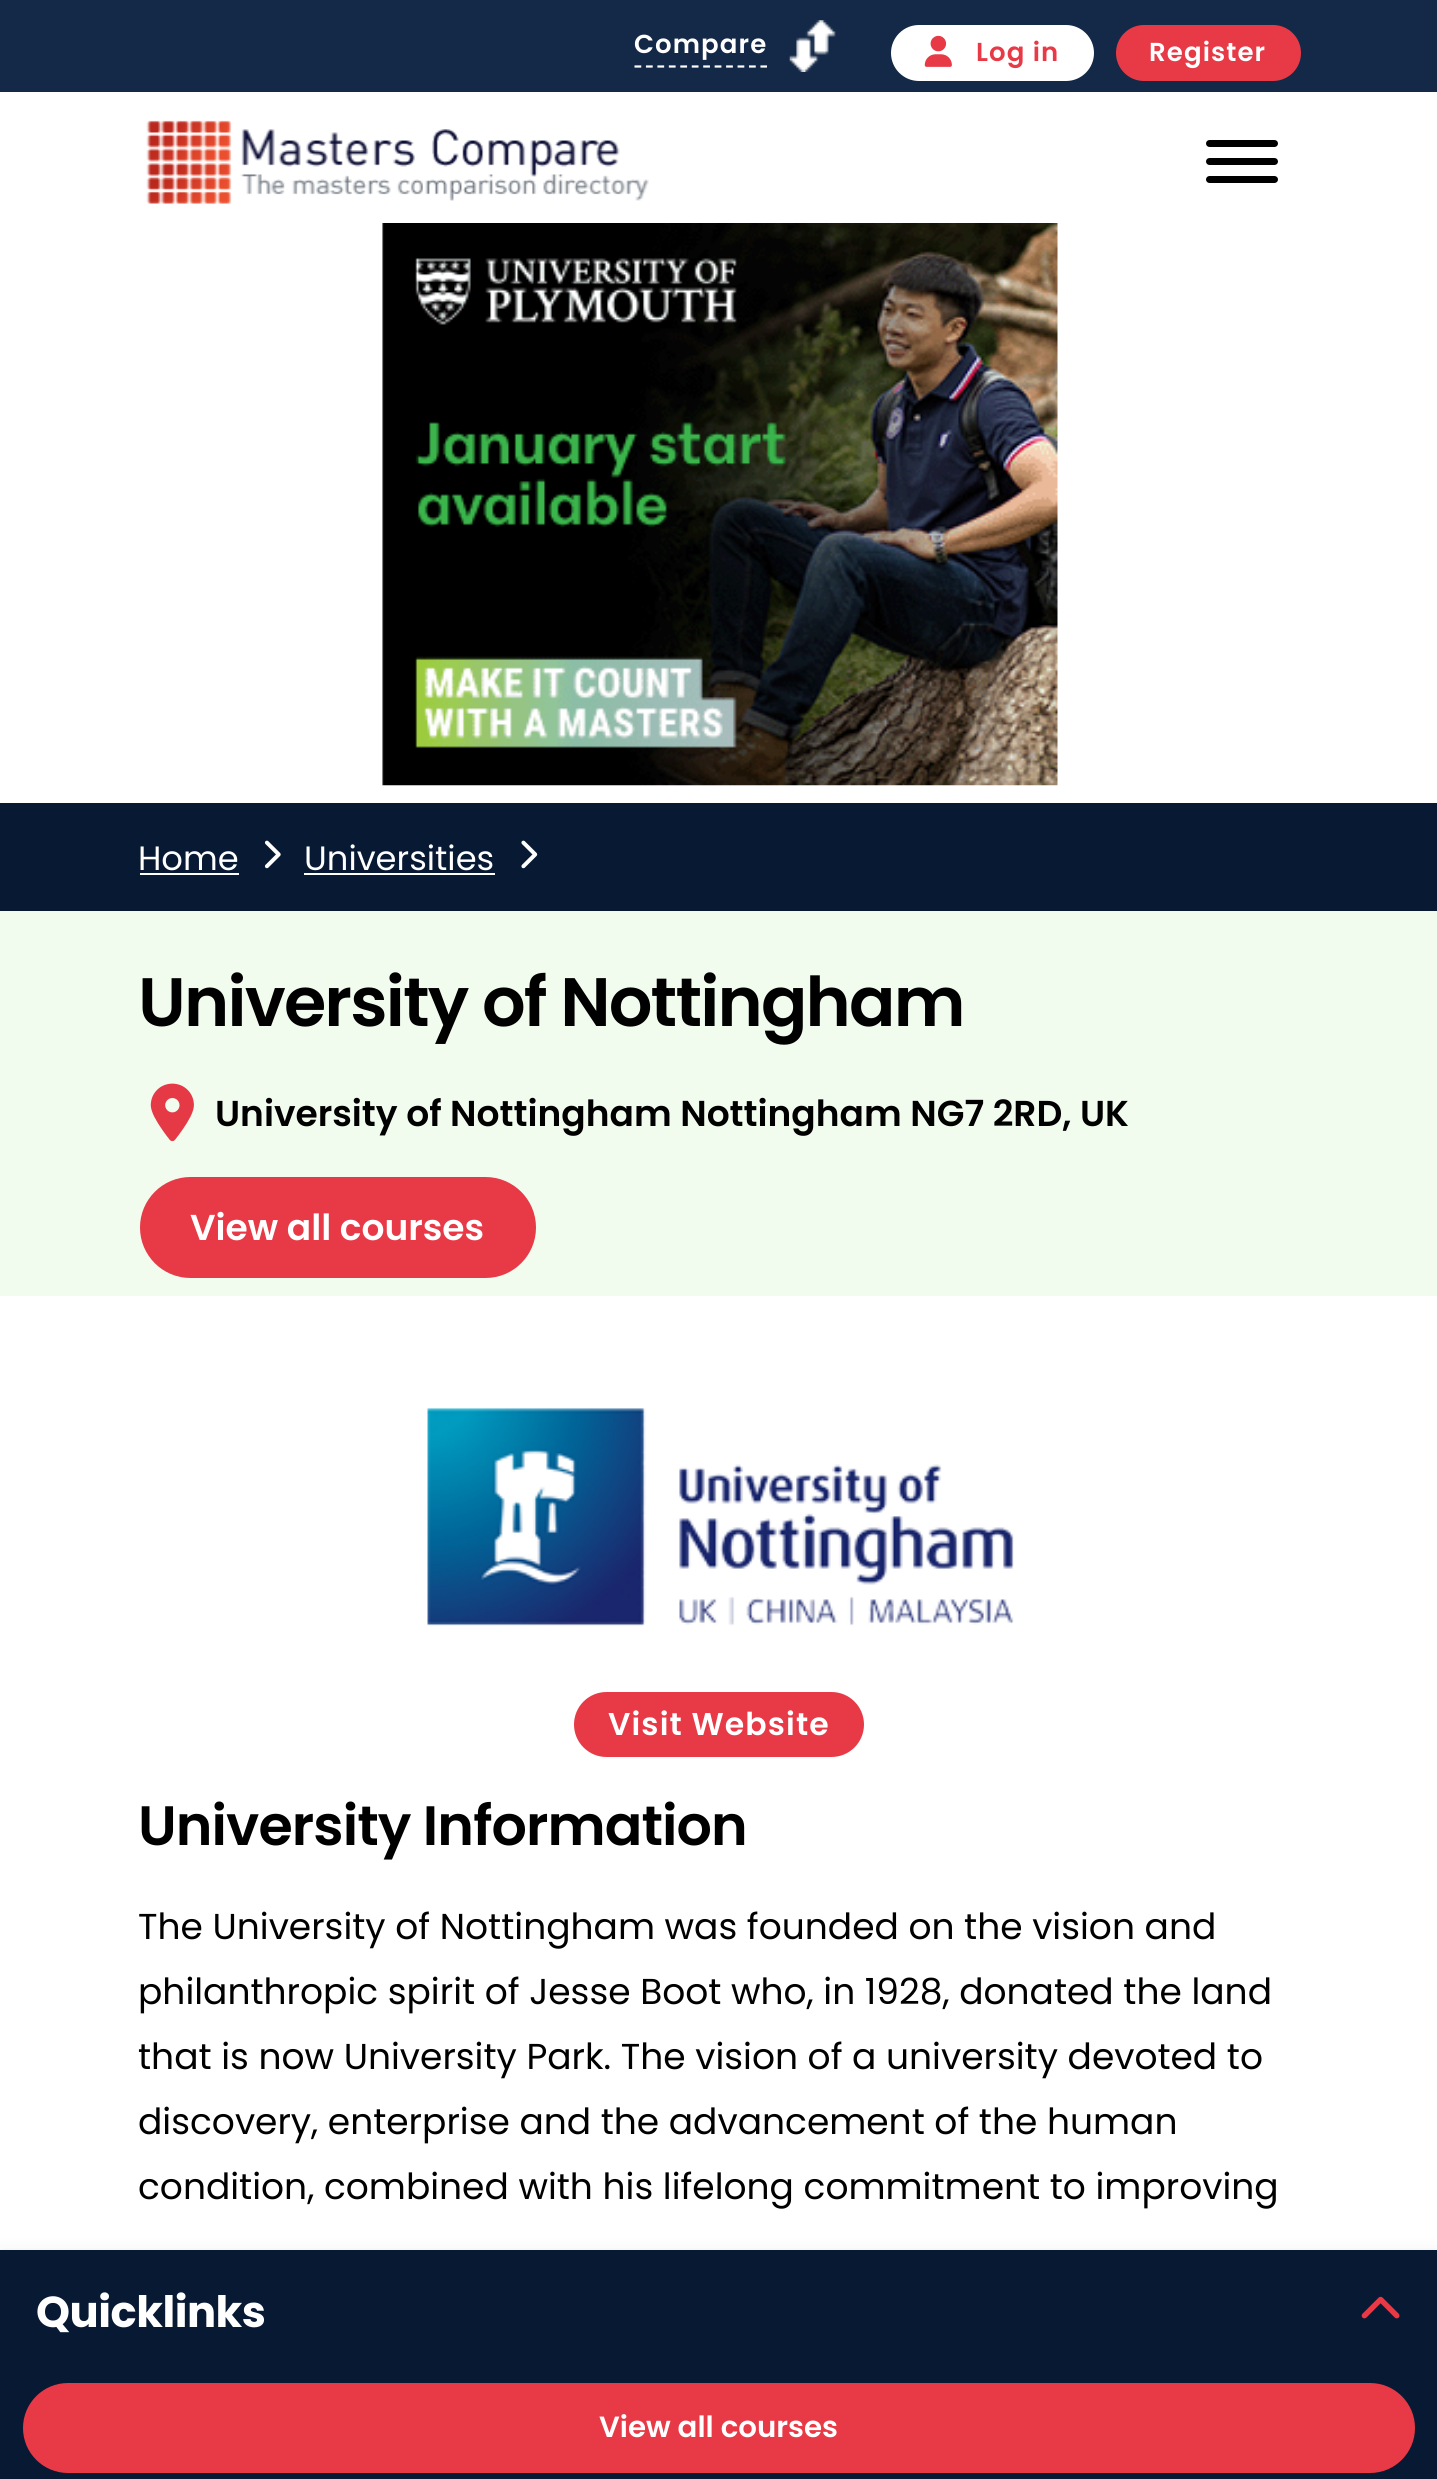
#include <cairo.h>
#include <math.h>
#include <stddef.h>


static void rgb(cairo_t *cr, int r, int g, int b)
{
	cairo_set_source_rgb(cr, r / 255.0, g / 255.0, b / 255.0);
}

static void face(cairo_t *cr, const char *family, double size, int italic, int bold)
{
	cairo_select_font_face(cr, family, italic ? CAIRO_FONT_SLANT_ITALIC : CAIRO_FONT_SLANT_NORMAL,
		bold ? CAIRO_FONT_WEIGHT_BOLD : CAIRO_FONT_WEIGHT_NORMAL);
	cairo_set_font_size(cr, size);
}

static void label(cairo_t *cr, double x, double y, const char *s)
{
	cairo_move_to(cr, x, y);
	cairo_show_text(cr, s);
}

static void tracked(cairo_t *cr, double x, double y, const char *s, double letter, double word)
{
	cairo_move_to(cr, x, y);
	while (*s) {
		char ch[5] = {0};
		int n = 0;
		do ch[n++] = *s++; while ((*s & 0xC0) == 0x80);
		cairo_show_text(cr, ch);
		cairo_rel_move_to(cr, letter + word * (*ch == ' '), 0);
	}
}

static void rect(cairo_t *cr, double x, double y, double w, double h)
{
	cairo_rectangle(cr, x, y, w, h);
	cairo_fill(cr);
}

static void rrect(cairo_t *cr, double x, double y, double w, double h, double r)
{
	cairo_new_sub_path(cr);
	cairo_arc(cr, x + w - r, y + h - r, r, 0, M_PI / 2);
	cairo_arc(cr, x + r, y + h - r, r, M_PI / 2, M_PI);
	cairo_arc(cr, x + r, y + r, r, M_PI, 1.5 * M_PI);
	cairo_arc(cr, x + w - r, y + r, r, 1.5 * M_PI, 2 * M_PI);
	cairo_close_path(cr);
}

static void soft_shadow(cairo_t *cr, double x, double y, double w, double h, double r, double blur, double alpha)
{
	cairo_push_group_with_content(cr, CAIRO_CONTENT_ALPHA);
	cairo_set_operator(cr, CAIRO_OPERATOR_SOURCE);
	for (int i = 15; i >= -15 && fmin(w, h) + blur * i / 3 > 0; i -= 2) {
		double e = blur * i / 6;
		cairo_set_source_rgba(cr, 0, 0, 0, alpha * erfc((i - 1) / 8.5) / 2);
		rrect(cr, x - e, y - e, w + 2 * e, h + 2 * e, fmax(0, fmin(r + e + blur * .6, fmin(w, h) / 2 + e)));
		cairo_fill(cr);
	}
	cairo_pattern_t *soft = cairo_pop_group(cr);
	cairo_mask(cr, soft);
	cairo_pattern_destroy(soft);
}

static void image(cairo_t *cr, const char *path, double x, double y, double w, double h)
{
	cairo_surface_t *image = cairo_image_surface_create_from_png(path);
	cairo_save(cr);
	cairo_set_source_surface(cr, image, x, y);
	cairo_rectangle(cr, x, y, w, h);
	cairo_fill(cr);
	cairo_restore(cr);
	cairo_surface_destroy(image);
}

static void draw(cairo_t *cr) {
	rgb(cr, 255, 255, 255);
	cairo_paint(cr);
	rgb(cr, 20, 41, 71);
	rect(cr, 0, 0, 1437, 92);
	cairo_new_path(cr);
	cairo_move_to(cr, 634.5, 66.5);
	cairo_line_to(cr, 767, 66.5);
	rgb(cr, 255, 255, 255);
	cairo_set_line_width(cr, 2.2);
	cairo_set_dash(cr, (double[]){6.75, 4.7}, 2, 0);
	cairo_stroke(cr);
	face(cr, "Poppins SemiBold", 26, 0, 0);
	tracked(cr, 634, 53, "Compare", 1.1, 0);
	image(cr, "image0.png", 789, 20, 47, 52);
	rrect(cr, 891, 25, 203, 56, 28);
	cairo_fill(cr);
	image(cr, "image1.png", 924, 35, 28, 32);
	rgb(cr, 231, 58, 70);
	tracked(cr, 976, 61, "Log in", 1.1, 0);
	rrect(cr, 1116, 25, 185, 56, 28);
	cairo_fill(cr);
	rgb(cr, 255, 255, 255);
	tracked(cr, 1149, 61, "Register", 1.1, 0);
	image(cr, "image2.png", 146, 120, 503, 84);
	rgb(cr, 0, 0, 0);
	rrect(cr, 1206, 158, 72, 7, 3.5);
	cairo_fill(cr);
	rrect(cr, 1206, 140, 72, 7, 3.5);
	cairo_fill(cr);
	rrect(cr, 1206, 176, 72, 7, 3.5);
	cairo_fill(cr);
	image(cr, "image3.png", 382, 223, 676, 563);
	rgb(cr, 7, 25, 51);
	rect(cr, 0, 803, 1437, 108);
	face(cr, "Poppins", 33.75, 0, 0);
	rgb(cr, 255, 255, 255);
	label(cr, 138, 870, "Home");
	rect(cr, 140, 873, 99, 2);
	image(cr, "image4.png", 264, 840, 17, 29);
	label(cr, 304, 870, "Universities");
	rect(cr, 304, 873, 191, 2);
	image(cr, "image5.png", 521, 840, 17, 29);
	rgb(cr, 241, 251, 238);
	rect(cr, 0, 911, 1437, 385);
	face(cr, "Poppins SemiBold", 68.5, 0, 0);
	rgb(cr, 0, 0, 0);
	tracked(cr, 138, 1026, "University of Nottingham", -1.8, 0);
	image(cr, "image6.png", 150, 1083, 44, 59);
	face(cr, "Poppins SemiBold", 36, 0, 0);
	label(cr, 215, 1126, "University of Nottingham Nottingham NG7 2RD, UK");
	rgb(cr, 231, 58, 70);
	rrect(cr, 140, 1177, 396, 101, 50.5);
	cairo_fill(cr);
	rgb(cr, 255, 255, 255);
	label(cr, 190, 1240, "View all courses");
	image(cr, "image7.png", 427, 1408, 587, 218);
	rgb(cr, 231, 58, 70);
	rrect(cr, 574, 1692, 290, 65, 32.5);
	cairo_fill(cr);
	face(cr, "Poppins SemiBold", 31.5, 0, 0);
	rgb(cr, 255, 255, 255);
	tracked(cr, 608, 1735, "Visit Website", 1.1, 0);
	face(cr, "Poppins SemiBold", 55.5, 0, 0);
	rgb(cr, 0, 0, 0);
	tracked(cr, 138, 1845, "University Information", -0.9, 0);
	face(cr, "Poppins", 36, 0, 0);
	label(cr, 138, 1939, "The University of Nottingham was founded on the vision and");
	label(cr, 138, 2004, "philanthropic spirit of Jesse Boot who, in 1928, donated the land");
	label(cr, 138, 2069, "that is now University Park. The vision of a university devoted to");
	label(cr, 138, 2134, "discovery, enterprise and the advancement of the human");
	label(cr, 138, 2199, "condition, combined with his lifelong commitment to improving");
	rgb(cr, 0, 0, 0);
	soft_shadow(cr, 0, 2261, 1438, 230, 0, 11, 0.2);
	rgb(cr, 7, 25, 51);
	rect(cr, 0, 2250, 1437, 229);
	face(cr, "Poppins", 43.25, 0, 1);
	rgb(cr, 255, 255, 255);
	tracked(cr, 36, 2327, "Quicklinks", -0.5, 0);
	image(cr, "image8.png", 1361, 2296, 39, 23);
	rgb(cr, 231, 58, 70);
	rrect(cr, 23, 2383, 1392, 90, 45);
	cairo_fill(cr);
	face(cr, "Poppins SemiBold", 29.25, 0, 0);
	rgb(cr, 255, 255, 255);
	label(cr, 599, 2437, "View all courses");
}

int main(void) {
	cairo_surface_t *surface = cairo_image_surface_create(CAIRO_FORMAT_RGB24, 1437, 2479);
	cairo_t *cr = cairo_create(surface);
	cairo_font_options_t *options = cairo_font_options_create();
	cairo_font_options_set_hint_metrics(options, CAIRO_HINT_METRICS_OFF);
	cairo_font_options_set_hint_style(options, CAIRO_HINT_STYLE_NONE);
	cairo_set_font_options(cr, options);
	cairo_set_miter_limit(cr, 4);
	draw(cr);
	cairo_surface_write_to_png(surface, "render.png");
	cairo_font_options_destroy(options);
	cairo_destroy(cr);
	cairo_surface_destroy(surface);
	return 0;
}
